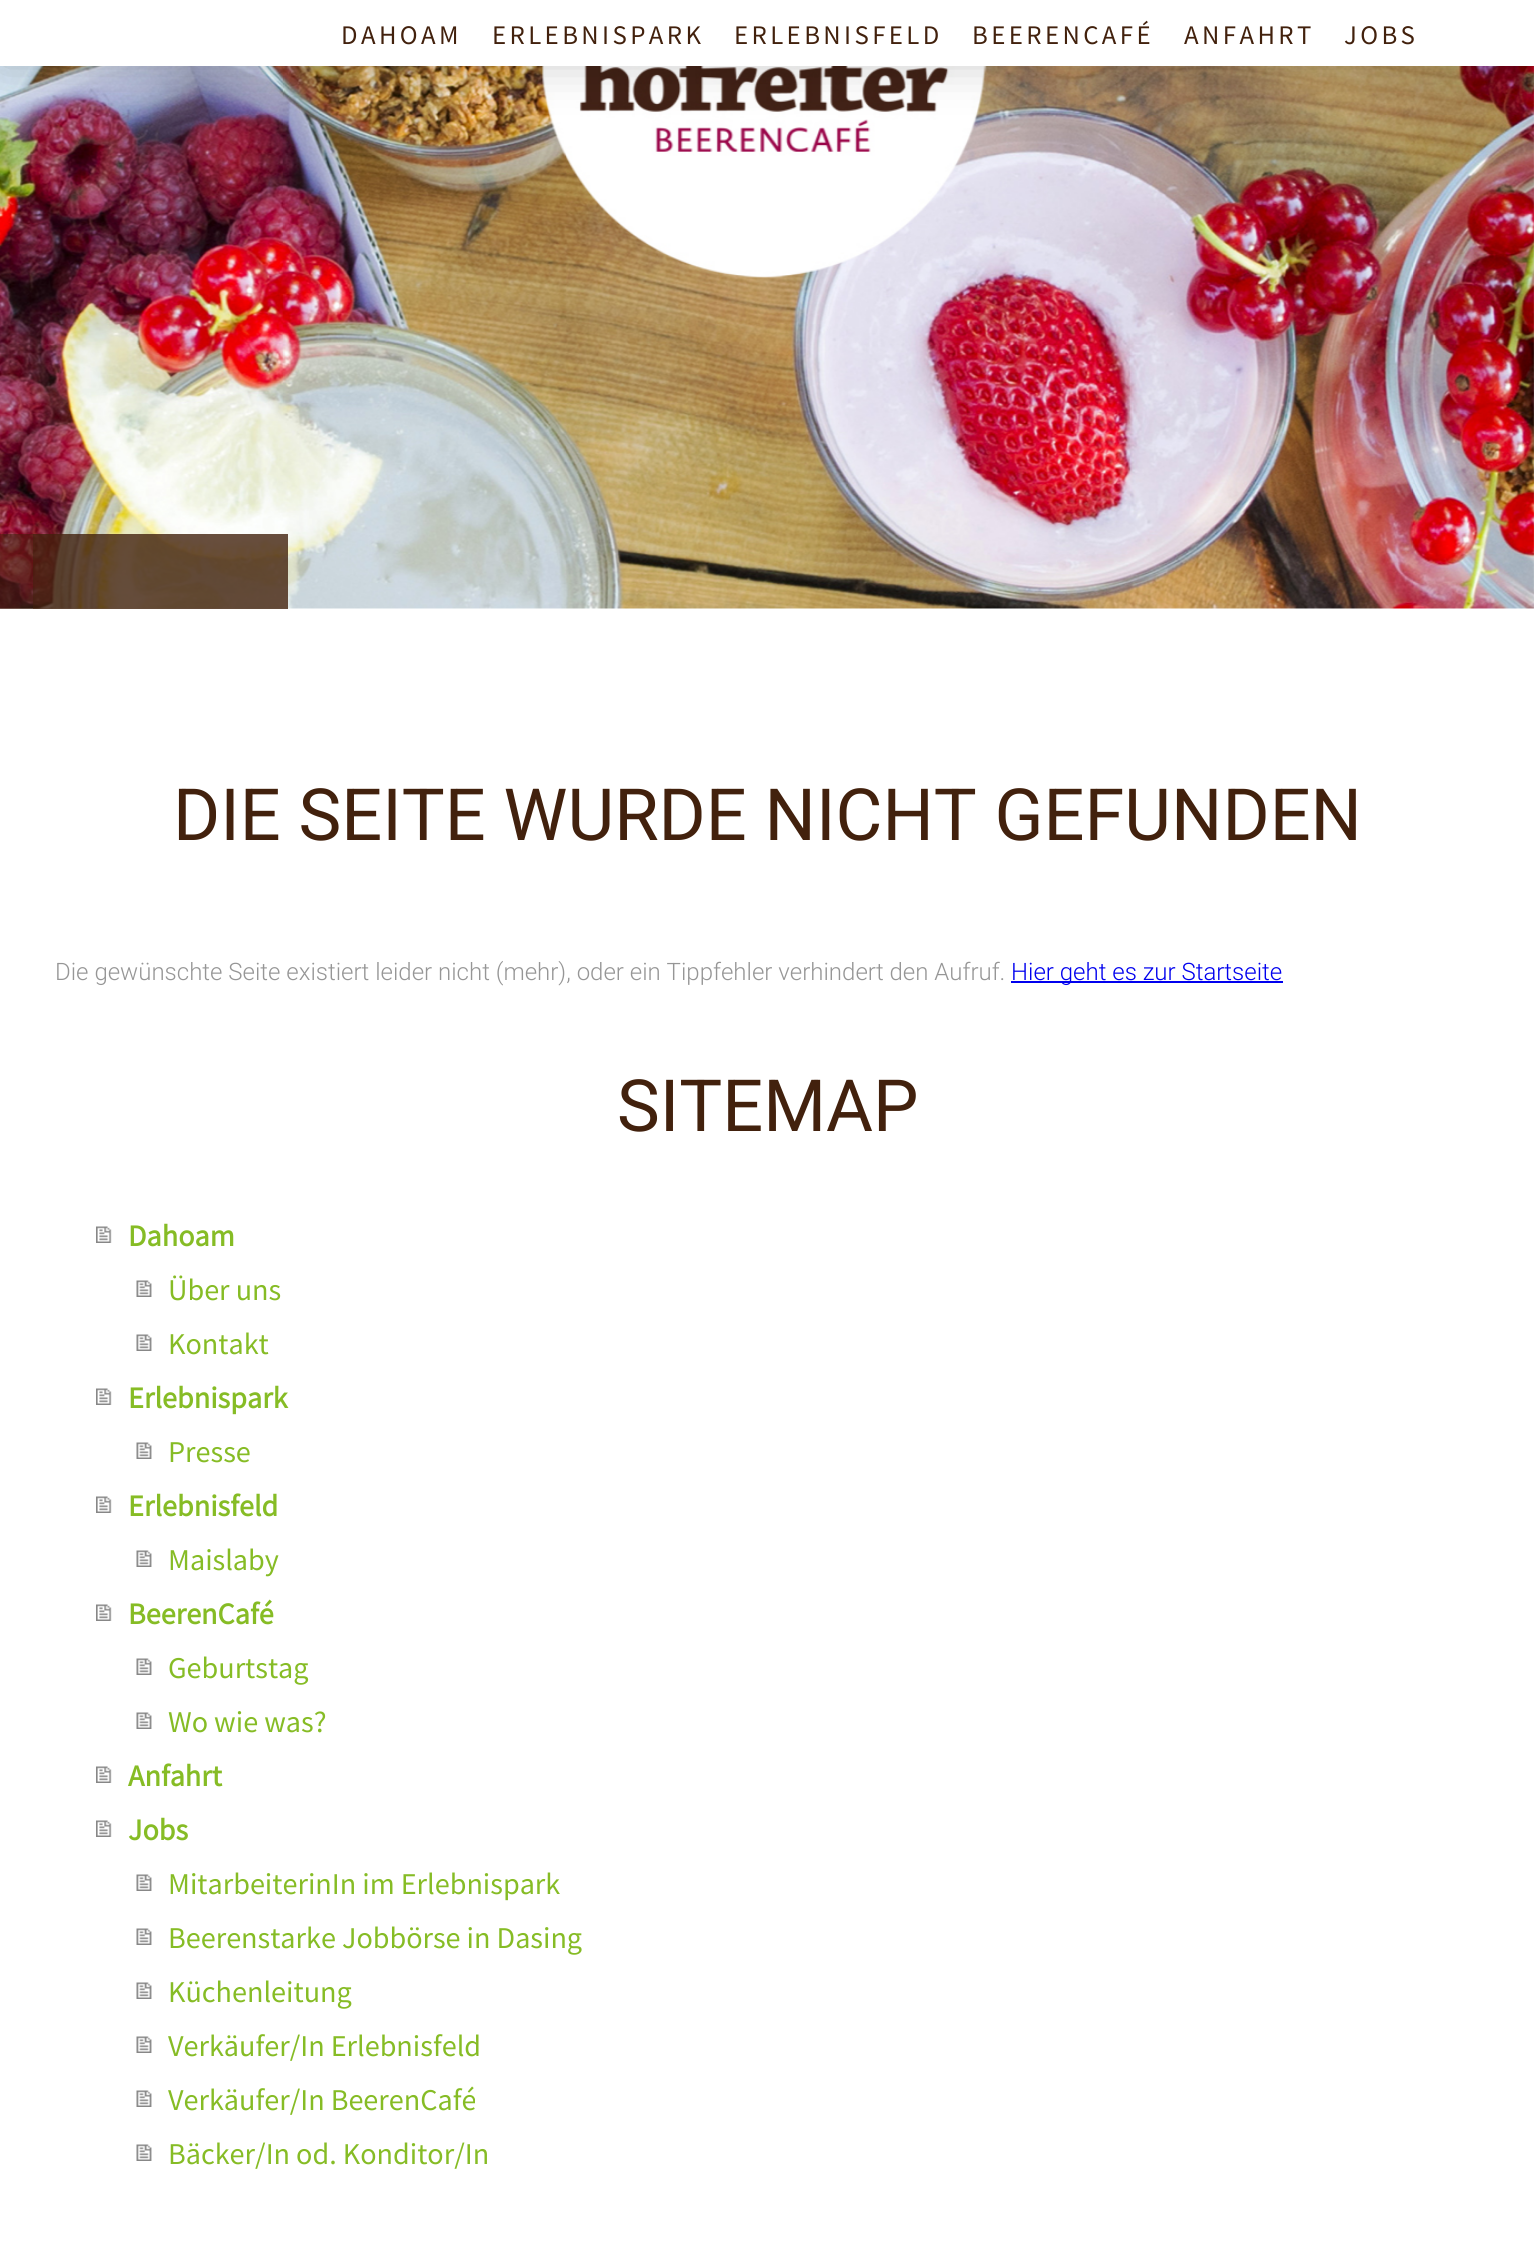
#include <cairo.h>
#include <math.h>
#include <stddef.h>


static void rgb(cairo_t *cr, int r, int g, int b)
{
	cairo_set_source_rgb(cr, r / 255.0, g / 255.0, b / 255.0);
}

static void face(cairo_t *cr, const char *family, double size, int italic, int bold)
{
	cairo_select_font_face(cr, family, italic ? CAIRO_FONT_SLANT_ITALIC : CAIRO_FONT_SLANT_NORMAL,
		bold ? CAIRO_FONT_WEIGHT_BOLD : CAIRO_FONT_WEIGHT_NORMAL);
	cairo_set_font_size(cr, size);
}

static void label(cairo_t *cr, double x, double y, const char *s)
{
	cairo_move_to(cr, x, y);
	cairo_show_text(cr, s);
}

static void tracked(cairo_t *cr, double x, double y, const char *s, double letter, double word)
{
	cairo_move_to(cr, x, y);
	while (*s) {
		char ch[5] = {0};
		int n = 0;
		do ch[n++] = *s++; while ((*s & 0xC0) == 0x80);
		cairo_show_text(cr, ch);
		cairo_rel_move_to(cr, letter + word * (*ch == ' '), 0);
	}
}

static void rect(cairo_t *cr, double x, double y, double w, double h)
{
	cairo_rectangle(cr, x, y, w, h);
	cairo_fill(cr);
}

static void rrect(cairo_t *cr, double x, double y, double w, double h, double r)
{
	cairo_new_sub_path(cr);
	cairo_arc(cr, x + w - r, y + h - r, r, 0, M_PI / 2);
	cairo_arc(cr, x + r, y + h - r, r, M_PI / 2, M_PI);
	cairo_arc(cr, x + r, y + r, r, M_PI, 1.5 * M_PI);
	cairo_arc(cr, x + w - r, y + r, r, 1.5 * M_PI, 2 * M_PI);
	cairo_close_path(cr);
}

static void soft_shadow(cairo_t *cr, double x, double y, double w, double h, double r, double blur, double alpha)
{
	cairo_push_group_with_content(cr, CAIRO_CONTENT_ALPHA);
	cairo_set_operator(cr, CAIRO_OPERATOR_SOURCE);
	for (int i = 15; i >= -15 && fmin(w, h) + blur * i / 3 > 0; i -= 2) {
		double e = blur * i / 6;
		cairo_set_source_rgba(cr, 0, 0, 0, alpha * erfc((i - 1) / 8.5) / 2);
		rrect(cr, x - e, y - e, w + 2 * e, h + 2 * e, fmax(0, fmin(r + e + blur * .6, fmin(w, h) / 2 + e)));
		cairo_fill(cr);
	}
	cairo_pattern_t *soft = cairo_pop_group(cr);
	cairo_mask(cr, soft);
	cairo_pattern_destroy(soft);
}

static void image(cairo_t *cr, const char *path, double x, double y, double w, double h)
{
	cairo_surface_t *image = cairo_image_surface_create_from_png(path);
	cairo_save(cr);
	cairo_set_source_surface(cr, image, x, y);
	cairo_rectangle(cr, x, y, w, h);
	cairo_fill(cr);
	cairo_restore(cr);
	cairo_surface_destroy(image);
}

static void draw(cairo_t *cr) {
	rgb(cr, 255, 255, 255);
	cairo_paint(cr);
	image(cr, "image0.png", 0, 66, 1534, 543);
	rgb(cr, 0, 0, 0);
	soft_shadow(cr, 0, 0, 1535, 66, 0, 22.5, 0.2);
	rgb(cr, 255, 255, 255);
	rect(cr, 0, 0, 1534, 66);
	face(cr, "Noto Sans HK Thin", 24, 0, 0);
	rgb(cr, 66, 33, 13);
	tracked(cr, 341, 44, "DAHOAM", 3.4, 0);
	tracked(cr, 492, 44, "ERLEBNISPARK", 3.4, 0);
	tracked(cr, 734, 44, "ERLEBNISFELD", 3.4, 0);
	tracked(cr, 972, 44, "BEERENCAFÉ", 3.4, 0);
	tracked(cr, 1184, 44, "ANFAHRT", 3.4, 0);
	tracked(cr, 1344, 44, "JOBS", 3.4, 0);
	cairo_set_source_rgba(cr, 0.259, 0.129, 0.051, 0.55);
	rect(cr, 33, 534, 255, 75);
	rect(cr, 63, 534, 225, 75);
	rect(cr, 0, 534, 63, 75);
	face(cr, "Roboto", 72, 0, 0);
	rgb(cr, 66, 33, 13);
	label(cr, 173, 840, "DIE SEITE WURDE NICHT GEFUNDEN");
	face(cr, "Roboto Light", 24, 0, 0);
	rgb(cr, 150, 150, 150);
	label(cr, 55, 980, "Die gewünschte Seite existiert leider nicht (mehr), oder ein Tippfehler verhindert den Aufruf.");
	rgb(cr, 0, 0, 238);
	rect(cr, 1011, 981, 272, 2);
	label(cr, 1011, 980, "Hier geht es zur Startseite");
	face(cr, "Roboto", 72, 0, 0);
	rgb(cr, 66, 33, 13);
	label(cr, 617, 1131, "SITEMAP");
	image(cr, "image1.png", 96, 1226, 16, 17);
	face(cr, "Noto Sans HK", 27, 0, 1);
	rgb(cr, 134, 188, 37);
	label(cr, 128, 1246, "Dahoam");
	image(cr, "image2.png", 136, 1280, 16, 17);
	face(cr, "Noto Sans HK Thin", 27, 0, 0);
	label(cr, 168, 1300, "Über uns");
	image(cr, "image2.png", 136, 1334, 16, 17);
	label(cr, 168, 1354, "Kontakt");
	image(cr, "image1.png", 96, 1388, 16, 17);
	face(cr, "Noto Sans HK", 27, 0, 1);
	label(cr, 128, 1408, "Erlebnispark");
	image(cr, "image2.png", 136, 1442, 16, 17);
	face(cr, "Noto Sans HK Thin", 27, 0, 0);
	label(cr, 168, 1462, "Presse");
	image(cr, "image1.png", 96, 1496, 16, 17);
	face(cr, "Noto Sans HK", 27, 0, 1);
	label(cr, 128, 1516, "Erlebnisfeld");
	image(cr, "image2.png", 136, 1550, 16, 17);
	face(cr, "Noto Sans HK Thin", 27, 0, 0);
	label(cr, 168, 1570, "Maislaby");
	image(cr, "image1.png", 96, 1604, 16, 17);
	face(cr, "Noto Sans HK", 27, 0, 1);
	label(cr, 128, 1624, "BeerenCafé");
	image(cr, "image2.png", 136, 1658, 16, 17);
	face(cr, "Noto Sans HK Thin", 27, 0, 0);
	label(cr, 168, 1678, "Geburtstag");
	image(cr, "image2.png", 136, 1712, 16, 17);
	label(cr, 168, 1732, "Wo wie was?");
	image(cr, "image1.png", 96, 1766, 16, 17);
	face(cr, "Noto Sans HK", 27, 0, 1);
	label(cr, 128, 1786, "Anfahrt");
	image(cr, "image1.png", 96, 1820, 16, 17);
	label(cr, 128, 1840, "Jobs");
	image(cr, "image2.png", 136, 1874, 16, 17);
	face(cr, "Noto Sans HK Thin", 27, 0, 0);
	label(cr, 168, 1894, "MitarbeiterinIn im Erlebnispark");
	image(cr, "image2.png", 136, 1928, 16, 17);
	label(cr, 168, 1948, "Beerenstarke Jobbörse in Dasing");
	image(cr, "image2.png", 136, 1982, 16, 17);
	label(cr, 168, 2002, "Küchenleitung");
	image(cr, "image2.png", 136, 2036, 16, 17);
	label(cr, 168, 2056, "Verkäufer/In Erlebnisfeld");
	image(cr, "image2.png", 136, 2090, 16, 17);
	label(cr, 168, 2110, "Verkäufer/In BeerenCafé");
	image(cr, "image2.png", 136, 2144, 16, 17);
	label(cr, 168, 2164, "Bäcker/In od. Konditor/In");
}

int main(void) {
	cairo_surface_t *surface = cairo_image_surface_create(CAIRO_FORMAT_RGB24, 1534, 2266);
	cairo_t *cr = cairo_create(surface);
	cairo_font_options_t *options = cairo_font_options_create();
	cairo_font_options_set_hint_metrics(options, CAIRO_HINT_METRICS_OFF);
	cairo_font_options_set_hint_style(options, CAIRO_HINT_STYLE_NONE);
	cairo_set_font_options(cr, options);
	cairo_set_miter_limit(cr, 4);
	draw(cr);
	cairo_surface_write_to_png(surface, "render.png");
	cairo_font_options_destroy(options);
	cairo_destroy(cr);
	cairo_surface_destroy(surface);
	return 0;
}
